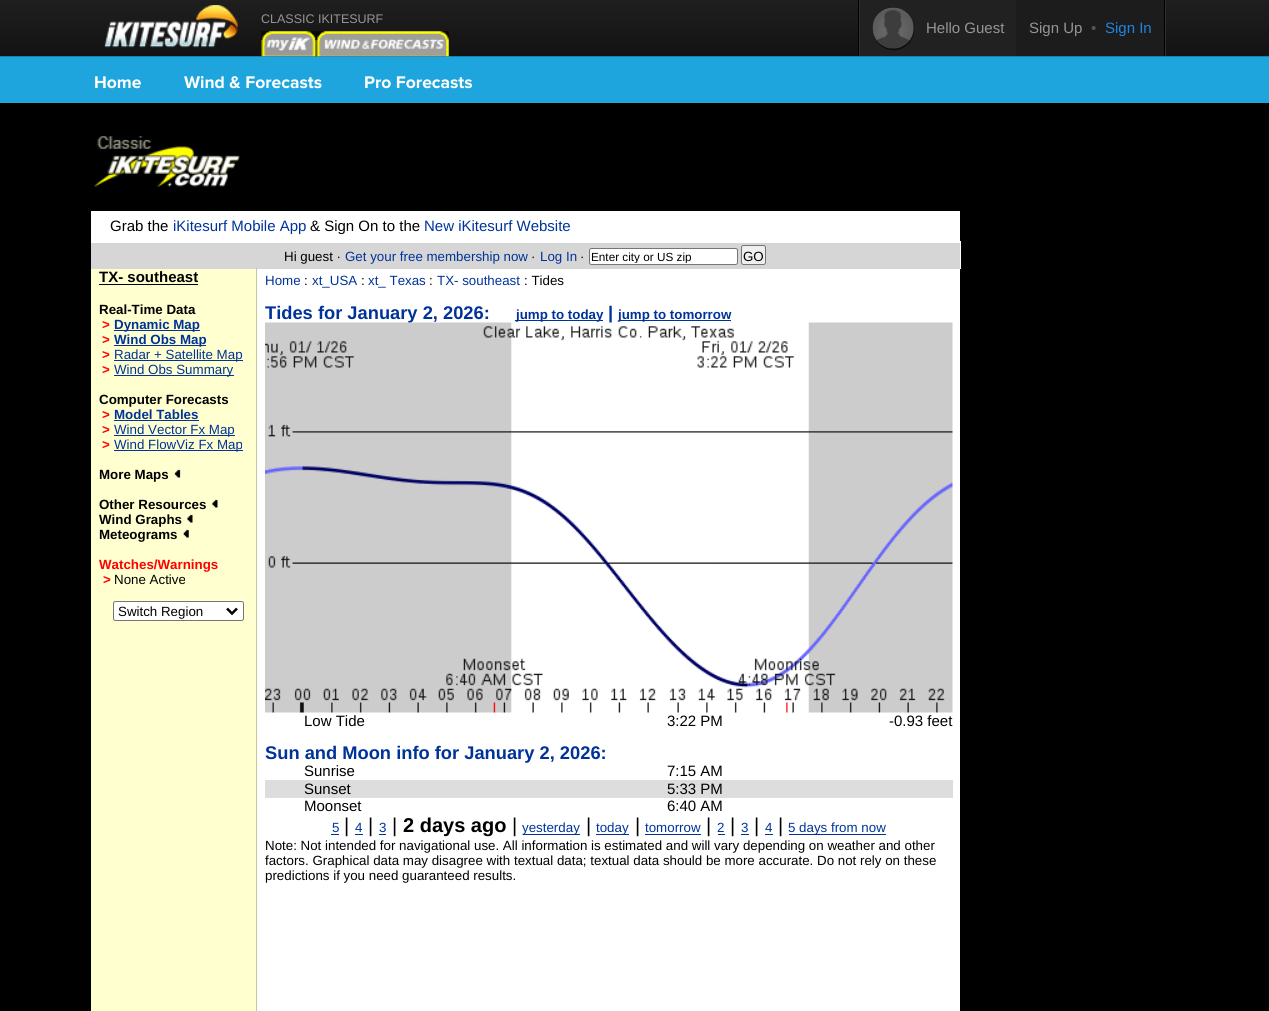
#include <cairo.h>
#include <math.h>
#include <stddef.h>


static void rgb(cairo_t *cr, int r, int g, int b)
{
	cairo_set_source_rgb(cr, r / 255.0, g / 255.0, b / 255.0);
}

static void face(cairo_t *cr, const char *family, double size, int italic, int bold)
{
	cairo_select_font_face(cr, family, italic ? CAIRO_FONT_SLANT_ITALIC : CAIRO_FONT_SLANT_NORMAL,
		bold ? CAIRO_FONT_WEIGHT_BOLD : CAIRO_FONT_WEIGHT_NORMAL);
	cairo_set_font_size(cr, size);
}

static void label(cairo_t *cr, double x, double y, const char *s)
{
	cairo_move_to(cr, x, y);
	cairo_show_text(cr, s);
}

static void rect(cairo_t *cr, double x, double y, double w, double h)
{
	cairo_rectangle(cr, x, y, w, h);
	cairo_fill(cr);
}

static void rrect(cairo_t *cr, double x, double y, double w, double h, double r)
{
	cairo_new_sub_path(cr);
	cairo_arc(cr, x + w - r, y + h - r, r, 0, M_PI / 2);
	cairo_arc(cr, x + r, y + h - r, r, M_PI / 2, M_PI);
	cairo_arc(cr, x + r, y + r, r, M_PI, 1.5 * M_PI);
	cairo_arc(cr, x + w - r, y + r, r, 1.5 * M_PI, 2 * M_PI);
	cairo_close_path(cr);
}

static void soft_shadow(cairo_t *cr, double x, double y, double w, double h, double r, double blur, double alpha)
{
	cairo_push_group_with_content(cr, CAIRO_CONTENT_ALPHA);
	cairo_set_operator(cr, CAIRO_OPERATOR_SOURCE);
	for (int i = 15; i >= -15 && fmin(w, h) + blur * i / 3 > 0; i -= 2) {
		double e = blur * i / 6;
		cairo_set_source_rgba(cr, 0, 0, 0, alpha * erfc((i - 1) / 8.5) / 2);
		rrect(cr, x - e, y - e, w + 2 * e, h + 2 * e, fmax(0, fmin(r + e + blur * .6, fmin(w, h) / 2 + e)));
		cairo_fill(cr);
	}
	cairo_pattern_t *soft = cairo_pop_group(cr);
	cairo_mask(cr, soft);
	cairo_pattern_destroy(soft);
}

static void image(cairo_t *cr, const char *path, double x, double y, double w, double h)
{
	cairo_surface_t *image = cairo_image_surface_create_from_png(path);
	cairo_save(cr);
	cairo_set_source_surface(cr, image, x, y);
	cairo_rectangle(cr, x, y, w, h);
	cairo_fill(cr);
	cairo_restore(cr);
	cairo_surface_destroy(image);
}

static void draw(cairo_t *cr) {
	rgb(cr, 0, 0, 0);
	cairo_paint(cr);
	rgb(cr, 30, 165, 222);
	rect(cr, 0, 56, 1269, 47);
	image(cr, "image0.png", 0, 0, 1269, 57);
	image(cr, "image1.png", 104, 5, 135, 43);
	face(cr, "Liberation Sans", 12.5, 0, 0);
	rgb(cr, 149, 149, 149);
	label(cr, 261, 23, "CLASSIC IKITESURF");
	image(cr, "image2.png", 261, 31, 56, 26);
	image(cr, "image3.png", 316, 31, 133, 26);
	rgb(cr, 47, 47, 47);
	rect(cr, 1165, 0, 1, 56);
	rgb(cr, 0, 0, 0);
	rect(cr, 858, 0, 1, 56);
	rect(cr, 1164, 0, 1, 56);
	rgb(cr, 47, 47, 47);
	rect(cr, 859, 0, 1, 56);
	rgb(cr, 33, 33, 33);
	rect(cr, 860, 1, 156, 55);
	rgb(cr, 0, 0, 0);
	soft_shadow(cr, 873, 9, 41, 41, 20.5, 0.5, 0.75);
	image(cr, "image4.png", 872, 7, 42, 42);
	face(cr, "Liberation Sans", 15, 0, 0);
	rgb(cr, 149, 149, 149);
	label(cr, 926, 33, "Hello Guest");
	rgb(cr, 28, 28, 28);
	rect(cr, 1016, 0, 148, 56);
	rgb(cr, 149, 149, 149);
	label(cr, 1029, 33, "Sign Up");
	rgb(cr, 85, 85, 85);
	label(cr, 1091, 33, "•");
	rgb(cr, 28, 133, 226);
	label(cr, 1105, 33, "Sign In");
	face(cr, "Proxima Nova", 17.5, 0, 1);
	rgb(cr, 255, 255, 255);
	label(cr, 94, 88, "Home");
	label(cr, 184, 88, "Wind & Forecasts");
	label(cr, 364, 88, "Pro Forecasts");
	image(cr, "image5.png", 94, 136, 146, 52);
	rect(cr, 91, 211, 869, 32);
	face(cr, "Liberation Sans", 15, 0, 0);
	rgb(cr, 0, 0, 0);
	label(cr, 110, 231, "Grab the");
	rgb(cr, 0, 51, 153);
	label(cr, 173, 231, "iKitesurf Mobile App");
	rgb(cr, 0, 0, 0);
	label(cr, 310, 231, "& Sign On to the");
	rgb(cr, 0, 51, 153);
	label(cr, 424, 231, "New iKitesurf Website");
	rgb(cr, 214, 214, 214);
	rect(cr, 91, 243, 869, 26);
	rgb(cr, 255, 255, 255);
	rect(cr, 960, 241, 1, 28);
	face(cr, "Liberation Sans", 13.33, 0, 0);
	rgb(cr, 0, 0, 0);
	label(cr, 284, 261, "Hi guest ·");
	rgb(cr, 0, 51, 153);
	label(cr, 345, 261, "Get your free membership now");
	rgb(cr, 0, 0, 0);
	label(cr, 531, 261, "·");
	rgb(cr, 0, 51, 153);
	label(cr, 540, 261, "Log In");
	rgb(cr, 0, 0, 0);
	label(cr, 580, 261, "·");
	rgb(cr, 255, 255, 255);
	rrect(cr, 589.5, 248.5, 148, 16, 2);
	cairo_fill_preserve(cr);
	rgb(cr, 118, 118, 118);
	cairo_set_line_width(cr, 1);
	cairo_stroke(cr);
	cairo_save(cr);
	cairo_rectangle(cr, 591, 250, 144, 13);
	cairo_clip(cr);
	face(cr, "Liberation Sans", 11.75, 0, 0);
	rgb(cr, 0, 0, 0);
	label(cr, 591, 261, "Enter city or US zip");
	cairo_restore(cr);
	rgb(cr, 239, 239, 239);
	rrect(cr, 741.5, 245.5, 24, 19, 2);
	cairo_fill_preserve(cr);
	rgb(cr, 118, 118, 118);
	cairo_stroke(cr);
	rgb(cr, 0, 0, 0);
	label(cr, 743, 261, "GO");
	rgb(cr, 255, 255, 207);
	rect(cr, 91, 269, 167, 742);
	rgb(cr, 196, 196, 196);
	rect(cr, 256, 268, 1, 743);
	face(cr, "Liberation Sans", 15, 0, 1);
	rgb(cr, 0, 0, 0);
	label(cr, 99, 282, "TX- southeast");
	rect(cr, 99, 284, 99, 1);
	face(cr, "Liberation Sans", 13.33, 0, 1);
	label(cr, 99, 314, "Real-Time Data");
	rgb(cr, 255, 0, 0);
	label(cr, 102, 329, ">");
	rgb(cr, 0, 51, 153);
	rect(cr, 114, 330, 86, 1);
	label(cr, 114, 329, "Dynamic Map");
	rgb(cr, 255, 0, 0);
	label(cr, 102, 344, ">");
	rgb(cr, 0, 51, 153);
	rect(cr, 114, 345, 92, 1);
	label(cr, 114, 344, "Wind Obs Map");
	rgb(cr, 255, 0, 0);
	label(cr, 102, 359, ">");
	rgb(cr, 0, 51, 153);
	rect(cr, 114, 360, 129, 1);
	face(cr, "Liberation Sans", 13.33, 0, 0);
	label(cr, 114, 359, "Radar + Satellite Map");
	face(cr, "Liberation Sans", 13.33, 0, 1);
	rgb(cr, 255, 0, 0);
	label(cr, 102, 374, ">");
	rgb(cr, 0, 51, 153);
	rect(cr, 114, 375, 120, 1);
	face(cr, "Liberation Sans", 13.33, 0, 0);
	label(cr, 114, 374, "Wind Obs Summary");
	face(cr, "Liberation Sans", 13.33, 0, 1);
	rgb(cr, 0, 0, 0);
	label(cr, 99, 404, "Computer Forecasts");
	rgb(cr, 255, 0, 0);
	label(cr, 102, 419, ">");
	rgb(cr, 0, 51, 153);
	label(cr, 114, 419, "Model Tables");
	rect(cr, 114, 420, 85, 1);
	rgb(cr, 255, 0, 0);
	label(cr, 102, 434, ">");
	rgb(cr, 0, 51, 153);
	rect(cr, 114, 435, 121, 1);
	face(cr, "Liberation Sans", 13.33, 0, 0);
	label(cr, 114, 434, "Wind Vector Fx Map");
	face(cr, "Liberation Sans", 13.33, 0, 1);
	rgb(cr, 255, 0, 0);
	label(cr, 102, 449, ">");
	rgb(cr, 0, 51, 153);
	rect(cr, 114, 450, 129, 1);
	face(cr, "Liberation Sans", 13.33, 0, 0);
	label(cr, 114, 449, "Wind FlowViz Fx Map");
	face(cr, "Liberation Sans", 13.33, 0, 1);
	rgb(cr, 0, 0, 0);
	label(cr, 99, 479, "More Maps");
	image(cr, "image6.png", 174, 469, 7, 9);
	label(cr, 99, 509, "Other Resources");
	image(cr, "image7.png", 212, 499, 6, 9);
	label(cr, 99, 524, "Wind Graphs");
	image(cr, "image7.png", 187, 514, 6, 9);
	label(cr, 99, 539, "Meteograms");
	image(cr, "image8.png", 183, 529, 6, 9);
	rgb(cr, 255, 0, 0);
	label(cr, 99, 569, "Watches/Warnings");
	label(cr, 103, 584, ">");
	face(cr, "Liberation Sans", 13.33, 0, 0);
	rgb(cr, 0, 0, 0);
	label(cr, 114, 584, "None Active");
	rgb(cr, 255, 255, 255);
	rrect(cr, 113.5, 601.5, 130, 19, 2);
	cairo_fill_preserve(cr);
	rgb(cr, 118, 118, 118);
	cairo_stroke(cr);
	cairo_new_path(cr);
	cairo_move_to(cr, 227, 608.5);
	cairo_line_to(cr, 232, 613.5);
	cairo_line_to(cr, 237, 608.5);
	rgb(cr, 0, 0, 0);
	cairo_set_line_width(cr, 2.5);
	cairo_stroke(cr);
	label(cr, 118, 616, "Switch Region");
	rgb(cr, 255, 255, 255);
	rect(cr, 258, 269, 702, 742);
	rgb(cr, 0, 51, 153);
	label(cr, 265, 285, "Home");
	rgb(cr, 0, 0, 0);
	label(cr, 304, 285, ":");
	rgb(cr, 0, 51, 153);
	label(cr, 312, 285, "xt_USA");
	rgb(cr, 0, 0, 0);
	label(cr, 361, 285, ":");
	rgb(cr, 0, 51, 153);
	label(cr, 368, 285, "xt_ Texas");
	rgb(cr, 0, 0, 0);
	label(cr, 429, 285, ":");
	rgb(cr, 0, 51, 153);
	label(cr, 437, 285, "TX- southeast");
	rgb(cr, 0, 0, 0);
	label(cr, 524, 285, ": Tides");
	face(cr, "Liberation Sans", 18.3, 0, 1);
	rgb(cr, 0, 51, 153);
	label(cr, 265, 319, "Tides for January 2, 2026:");
	rect(cr, 515, 320, 88, 1);
	face(cr, "Liberation Sans", 13.33, 0, 1);
	label(cr, 516, 319, "jump to today");
	face(cr, "Liberation Sans", 18.3, 0, 1);
	label(cr, 608, 319, "|");
	rect(cr, 619, 320, 112, 1);
	face(cr, "Liberation Sans", 13.33, 0, 1);
	label(cr, 618, 319, "jump to tomorrow");
	image(cr, "image9.png", 265, 322, 688, 391);
	face(cr, "Liberation Sans", 15, 0, 0);
	rgb(cr, 0, 0, 0);
	label(cr, 304, 726, "Low Tide");
	label(cr, 667, 726, "3:22 PM");
	label(cr, 889, 726, "-0.93 feet");
	face(cr, "Liberation Sans", 18.3, 0, 1);
	rgb(cr, 0, 51, 153);
	label(cr, 265, 759, "Sun and Moon info for January 2, 2026:");
	face(cr, "Liberation Sans", 15, 0, 0);
	rgb(cr, 0, 0, 0);
	label(cr, 304, 776, "Sunrise");
	label(cr, 667, 776, "7:15 AM");
	rgb(cr, 221, 221, 221);
	rect(cr, 265, 780, 688, 18);
	rgb(cr, 0, 0, 0);
	label(cr, 304, 794, "Sunset");
	label(cr, 667, 794, "5:33 PM");
	label(cr, 304, 811, "Moonset");
	label(cr, 667, 811, "6:40 AM");
	face(cr, "Liberation Sans", 13.33, 0, 0);
	rgb(cr, 0, 51, 153);
	label(cr, 332, 832, "5");
	rect(cr, 331, 834, 8, 1);
	face(cr, "Liberation Sans", 20, 0, 0);
	rgb(cr, 0, 0, 0);
	label(cr, 344, 832, "|");
	face(cr, "Liberation Sans", 13.33, 0, 0);
	rgb(cr, 0, 51, 153);
	label(cr, 355, 832, "4");
	rect(cr, 355, 834, 8, 1);
	face(cr, "Liberation Sans", 20, 0, 0);
	rgb(cr, 0, 0, 0);
	label(cr, 368, 832, "|");
	face(cr, "Liberation Sans", 13.33, 0, 0);
	rgb(cr, 0, 51, 153);
	label(cr, 379, 832, "3");
	rect(cr, 379, 834, 7, 1);
	face(cr, "Liberation Sans", 20, 0, 0);
	rgb(cr, 0, 0, 0);
	label(cr, 392, 832, "|");
	face(cr, "Liberation Sans", 20, 0, 1);
	label(cr, 403, 832, "2 days ago");
	face(cr, "Liberation Sans", 20, 0, 0);
	label(cr, 512, 832, "|");
	rgb(cr, 0, 51, 153);
	rect(cr, 523, 834, 57, 1);
	face(cr, "Liberation Sans", 13.33, 0, 0);
	label(cr, 522, 832, "yesterday");
	face(cr, "Liberation Sans", 20, 0, 0);
	rgb(cr, 0, 0, 0);
	label(cr, 586, 832, "|");
	rgb(cr, 0, 51, 153);
	rect(cr, 596, 834, 33, 1);
	face(cr, "Liberation Sans", 13.33, 0, 0);
	label(cr, 596, 832, "today");
	face(cr, "Liberation Sans", 20, 0, 0);
	rgb(cr, 0, 0, 0);
	label(cr, 635, 832, "|");
	face(cr, "Liberation Sans", 13.33, 0, 0);
	rgb(cr, 0, 51, 153);
	label(cr, 645, 832, "tomorrow");
	rect(cr, 645, 834, 56, 1);
	face(cr, "Liberation Sans", 20, 0, 0);
	rgb(cr, 0, 0, 0);
	label(cr, 706, 832, "|");
	face(cr, "Liberation Sans", 13.33, 0, 0);
	rgb(cr, 0, 51, 153);
	label(cr, 717, 832, "2");
	rect(cr, 718, 834, 7, 1);
	face(cr, "Liberation Sans", 20, 0, 0);
	rgb(cr, 0, 0, 0);
	label(cr, 730, 832, "|");
	face(cr, "Liberation Sans", 13.33, 0, 0);
	rgb(cr, 0, 51, 153);
	label(cr, 741, 832, "3");
	rect(cr, 741, 834, 8, 1);
	face(cr, "Liberation Sans", 20, 0, 0);
	rgb(cr, 0, 0, 0);
	label(cr, 754, 832, "|");
	face(cr, "Liberation Sans", 13.33, 0, 0);
	rgb(cr, 0, 51, 153);
	label(cr, 765, 832, "4");
	rect(cr, 765, 834, 8, 1);
	face(cr, "Liberation Sans", 20, 0, 0);
	rgb(cr, 0, 0, 0);
	label(cr, 778, 832, "|");
	rgb(cr, 0, 51, 153);
	rect(cr, 789, 834, 97, 1);
	face(cr, "Liberation Sans", 13.33, 0, 0);
	label(cr, 788, 832, "5 days from now");
	rgb(cr, 0, 0, 0);
	label(cr, 265, 850, "Note: Not intended for navigational use. All information is estimated and will vary depending on weather and other");
	label(cr, 265, 865, "factors. Graphical data may disagree with textual data; textual data should be more accurate. Do not rely on these");
	label(cr, 265, 880, "predictions if you need guaranteed results.");
}

int main(void) {
	cairo_surface_t *surface = cairo_image_surface_create(CAIRO_FORMAT_RGB24, 1269, 1011);
	cairo_t *cr = cairo_create(surface);
	cairo_font_options_t *options = cairo_font_options_create();
	cairo_font_options_set_hint_metrics(options, CAIRO_HINT_METRICS_OFF);
	cairo_font_options_set_hint_style(options, CAIRO_HINT_STYLE_NONE);
	cairo_set_font_options(cr, options);
	cairo_set_miter_limit(cr, 4);
	draw(cr);
	cairo_surface_write_to_png(surface, "render.png");
	cairo_font_options_destroy(options);
	cairo_destroy(cr);
	cairo_surface_destroy(surface);
	return 0;
}
